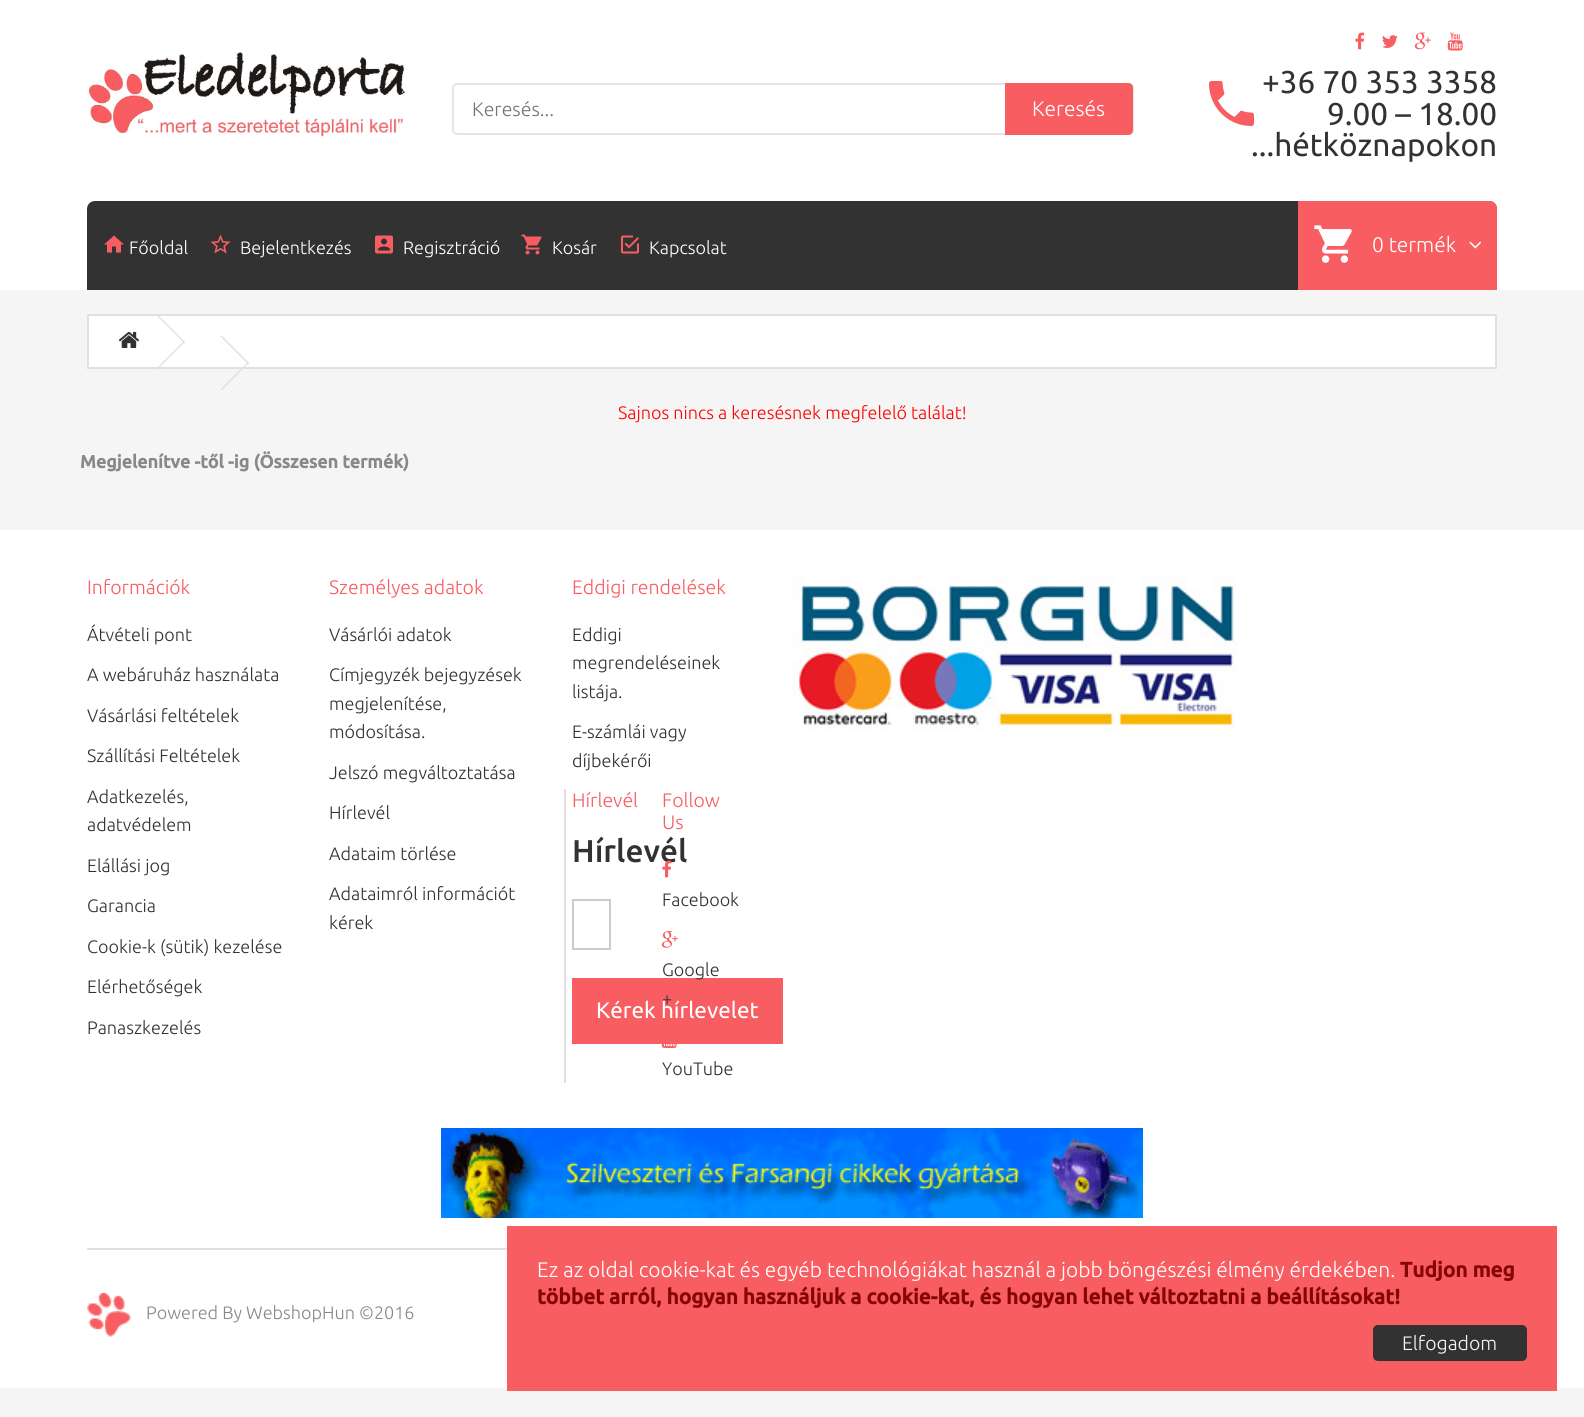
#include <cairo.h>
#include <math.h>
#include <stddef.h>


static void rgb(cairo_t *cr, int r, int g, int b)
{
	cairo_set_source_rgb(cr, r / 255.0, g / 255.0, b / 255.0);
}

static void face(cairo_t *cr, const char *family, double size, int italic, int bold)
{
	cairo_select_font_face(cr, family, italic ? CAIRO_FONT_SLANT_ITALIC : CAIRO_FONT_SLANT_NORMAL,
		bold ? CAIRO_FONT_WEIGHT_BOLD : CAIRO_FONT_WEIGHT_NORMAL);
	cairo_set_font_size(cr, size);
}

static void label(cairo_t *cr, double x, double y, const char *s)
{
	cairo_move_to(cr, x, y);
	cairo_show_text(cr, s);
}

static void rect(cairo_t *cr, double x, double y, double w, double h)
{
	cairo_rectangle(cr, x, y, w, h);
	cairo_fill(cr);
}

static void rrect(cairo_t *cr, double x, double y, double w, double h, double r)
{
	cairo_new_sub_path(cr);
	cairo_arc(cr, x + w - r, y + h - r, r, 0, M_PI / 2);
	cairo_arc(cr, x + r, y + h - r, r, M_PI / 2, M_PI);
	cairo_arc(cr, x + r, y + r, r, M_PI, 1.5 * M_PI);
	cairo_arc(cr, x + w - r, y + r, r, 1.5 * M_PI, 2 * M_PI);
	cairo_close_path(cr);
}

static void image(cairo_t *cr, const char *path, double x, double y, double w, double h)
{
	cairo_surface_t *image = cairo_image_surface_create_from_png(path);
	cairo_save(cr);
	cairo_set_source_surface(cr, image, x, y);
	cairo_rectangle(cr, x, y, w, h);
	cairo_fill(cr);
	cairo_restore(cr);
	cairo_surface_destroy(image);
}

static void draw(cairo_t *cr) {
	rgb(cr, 245, 245, 245);
	cairo_paint(cr);
	rgb(cr, 255, 255, 255);
	rect(cr, 0, 0, 1584, 290);
	image(cr, "image0.png", 1355, 32, 10, 18);
	image(cr, "image1.png", 1382, 35, 16, 13);
	image(cr, "image2.png", 1414, 32, 17, 18);
	image(cr, "image3.png", 1447, 32, 16, 19);
	image(cr, "image4.png", 87, 52, 318, 86);
	rrect(cr, 453, 84, 680, 50, 4);
	rgb(cr, 229, 229, 229);
	cairo_stroke(cr);
	face(cr, "Ubuntu Light", 19.5, 0, 0);
	rgb(cr, 117, 117, 117);
	label(cr, 472, 116, "Keresés...");
	rgb(cr, 248, 93, 98);
	cairo_new_path(cr);
	cairo_move_to(cr, 1005, 83);
	cairo_line_to(cr, 1128, 83);
	cairo_curve_to(cr, 1131, 83, 1133, 85, 1133, 88);
	cairo_line_to(cr, 1133, 130);
	cairo_curve_to(cr, 1133, 133, 1131, 135, 1128, 135);
	cairo_line_to(cr, 1005, 135);
	cairo_close_path(cr);
	cairo_fill(cr);
	face(cr, "Ubuntu Light", 21, 0, 0);
	rgb(cr, 255, 255, 255);
	label(cr, 1032, 116, "Keresés");
	image(cr, "image5.png", 1209, 81, 45, 45);
	face(cr, "Ubuntu", 31.5, 0, 0);
	rgb(cr, 50, 50, 50);
	label(cr, 1262, 93, "+36 70 353 3358");
	label(cr, 1327, 125, "9.00 – 18.00");
	label(cr, 1251, 156, "...hétköznapokon");
	cairo_new_path(cr);
	cairo_move_to(cr, 95, 201);
	cairo_line_to(cr, 1489, 201);
	cairo_curve_to(cr, 1493.5, 201, 1497, 204.5, 1497, 209);
	cairo_line_to(cr, 1497, 290);
	cairo_line_to(cr, 87, 290);
	cairo_line_to(cr, 87, 209);
	cairo_curve_to(cr, 87, 204.5, 90.5, 201, 95, 201);
	cairo_close_path(cr);
	cairo_fill(cr);
	image(cr, "image6.png", 104, 235, 20, 18);
	face(cr, "Ubuntu Light", 18, 0, 0);
	rgb(cr, 255, 255, 255);
	label(cr, 129, 254, "Főoldal");
	image(cr, "image7.png", 210, 234, 21, 20);
	label(cr, 240, 254, "Bejelentkezés");
	image(cr, "image8.png", 375, 235, 18, 19);
	label(cr, 403, 254, "Regisztráció");
	image(cr, "image9.png", 521, 234, 21, 21);
	label(cr, 552, 254, "Kosár");
	image(cr, "image10.png", 621, 235, 18, 19);
	label(cr, 649, 254, "Kapcsolat");
	rgb(cr, 248, 93, 98);
	cairo_new_path(cr);
	cairo_move_to(cr, 1298, 201);
	cairo_line_to(cr, 1489, 201);
	cairo_curve_to(cr, 1493.5, 201, 1497, 204.5, 1497, 209);
	cairo_line_to(cr, 1497, 290);
	cairo_line_to(cr, 1298, 290);
	cairo_close_path(cr);
	cairo_fill(cr);
	image(cr, "image11.png", 1314, 225, 38, 38);
	face(cr, "Ubuntu Light", 21, 0, 0);
	rgb(cr, 255, 255, 255);
	label(cr, 1372, 252, "0 termék");
	image(cr, "image12.png", 1469, 241, 12, 8);
	cairo_rectangle(cr, 88, 315, 1408, 53);
	cairo_fill_preserve(cr);
	rgb(cr, 225, 224, 224);
	cairo_stroke(cr);
	image(cr, "image13.png", 118, 331, 21, 17);
	cairo_new_path(cr);
	cairo_move_to(cr, 156.5, 315.5);
	cairo_line_to(cr, 157.5, 314.5);
	cairo_line_to(cr, 185, 342);
	cairo_line_to(cr, 184, 343);
	cairo_close_path(cr);
	cairo_fill(cr);
	cairo_new_path(cr);
	cairo_move_to(cr, 156.5, 368.5);
	cairo_line_to(cr, 184, 341);
	cairo_line_to(cr, 185, 342);
	cairo_line_to(cr, 157.5, 369.5);
	cairo_close_path(cr);
	cairo_fill(cr);
	cairo_new_path(cr);
	cairo_move_to(cr, 220.5, 336.5);
	cairo_line_to(cr, 221.5, 335.5);
	cairo_line_to(cr, 249, 363);
	cairo_line_to(cr, 248, 364);
	cairo_close_path(cr);
	cairo_fill(cr);
	cairo_new_path(cr);
	cairo_move_to(cr, 220.5, 389.5);
	cairo_line_to(cr, 248, 362);
	cairo_line_to(cr, 249, 363);
	cairo_line_to(cr, 221.5, 390.5);
	cairo_close_path(cr);
	cairo_fill(cr);
	face(cr, "Ubuntu Light", 18, 0, 0);
	rgb(cr, 255, 0, 0);
	label(cr, 618, 419, "Sajnos nincs a keresésnek megfelelő találat!");
	face(cr, "Ubuntu", 18, 0, 1);
	rgb(cr, 136, 136, 136);
	label(cr, 80, 468, "Megjelenítve -től -ig (Összesen termék)");
	rgb(cr, 255, 255, 255);
	rect(cr, 0, 530, 1584, 858);
	face(cr, "Ubuntu Light", 19.5, 0, 0);
	rgb(cr, 248, 93, 98);
	label(cr, 87, 594, "Információk");
	face(cr, "Ubuntu Light", 18, 0, 0);
	rgb(cr, 50, 50, 50);
	label(cr, 87, 641, "Átvételi pont");
	label(cr, 87, 681, "A webáruház használata");
	label(cr, 87, 722, "Vásárlási feltételek");
	label(cr, 87, 762, "Szállítási Feltételek");
	label(cr, 87, 803, "Adatkezelés,");
	label(cr, 87, 831, "adatvédelem");
	label(cr, 87, 872, "Elállási jog");
	label(cr, 87, 912, "Garancia");
	label(cr, 87, 953, "Cookie-k (sütik) kezelése");
	label(cr, 87, 993, "Elérhetőségek");
	label(cr, 87, 1034, "Panaszkezelés");
	face(cr, "Ubuntu Light", 19.5, 0, 0);
	rgb(cr, 248, 93, 98);
	label(cr, 329, 594, "Személyes adatok");
	face(cr, "Ubuntu Light", 18, 0, 0);
	rgb(cr, 50, 50, 50);
	label(cr, 329, 641, "Vásárlói adatok");
	label(cr, 329, 681, "Címjegyzék bejegyzések");
	label(cr, 329, 710, "megjelenítése,");
	label(cr, 329, 738, "módosítása.");
	label(cr, 329, 779, "Jelszó megváltoztatása");
	label(cr, 329, 819, "Hírlevél");
	label(cr, 329, 860, "Adataim törlése");
	label(cr, 329, 900, "Adataimról információt");
	label(cr, 329, 929, "kérek");
	face(cr, "Ubuntu Light", 19.5, 0, 0);
	rgb(cr, 248, 93, 98);
	label(cr, 572, 594, "Eddigi rendelések");
	face(cr, "Ubuntu Light", 18, 0, 0);
	rgb(cr, 50, 50, 50);
	label(cr, 572, 641, "Eddigi");
	label(cr, 572, 669, "megrendeléseinek");
	label(cr, 572, 698, "listája.");
	label(cr, 572, 738, "E-számlái vagy");
	label(cr, 572, 767, "díjbekérői");
	face(cr, "Ubuntu Light", 19.5, 0, 0);
	rgb(cr, 248, 93, 98);
	label(cr, 572, 807, "Hírlevél");
	face(cr, "Ubuntu Medium", 31.5, 0, 0);
	rgb(cr, 50, 50, 50);
	label(cr, 572, 862, "Hírlevél");
	cairo_rectangle(cr, 573, 900, 37, 49);
	rgb(cr, 204, 204, 204);
	cairo_stroke(cr);
	rgb(cr, 248, 93, 98);
	rect(cr, 572, 978, 211, 66);
	face(cr, "Ubuntu", 22.5, 0, 0);
	rgb(cr, 255, 255, 255);
	label(cr, 596, 1018, "Kérek hírlevelet");
	rgb(cr, 225, 224, 224);
	rect(cr, 564, 789, 2, 294);
	face(cr, "Ubuntu Light", 19.5, 0, 0);
	rgb(cr, 248, 93, 98);
	label(cr, 662, 807, "Follow");
	label(cr, 662, 829, "Us");
	image(cr, "image14.png", 662, 860, 10, 18);
	face(cr, "Ubuntu Light", 18, 0, 0);
	rgb(cr, 50, 50, 50);
	label(cr, 662, 906, "Facebook");
	image(cr, "image15.png", 661, 931, 17, 17);
	label(cr, 662, 976, "Google");
	label(cr, 662, 1005, "+");
	image(cr, "image16.png", 661, 1044, 16, 5);
	label(cr, 662, 1075, "YouTube");
	image(cr, "image17.png", 792, 576, 444, 156);
	image(cr, "image18.png", 441, 1128, 702, 90);
	rgb(cr, 225, 224, 224);
	rect(cr, 87, 1248, 420, 2);
	image(cr, "image19.png", 87, 1293, 44, 44);
	rgb(cr, 136, 136, 136);
	label(cr, 146, 1319, "Powered By WebshopHun ©2016");
	rgb(cr, 248, 93, 98);
	rect(cr, 507, 1226, 1050, 165);
	face(cr, "Ubuntu Light", 21, 0, 0);
	rgb(cr, 255, 255, 255);
	label(cr, 537, 1277, "Ez az oldal cookie-kat és egyéb technológiákat használ a jobb böngészési élmény érdekében.");
	face(cr, "Ubuntu", 21, 0, 1);
	rgb(cr, 134, 6, 6);
	label(cr, 1400, 1277, "Tudjon meg");
	label(cr, 537, 1304, "többet arról, hogyan használjuk a cookie-kat, és hogyan lehet változtatni a beállításokat!");
	rgb(cr, 50, 50, 50);
	rrect(cr, 1373, 1325, 154, 36, 5);
	cairo_fill(cr);
	face(cr, "Ubuntu Light", 19.5, 0, 0);
	rgb(cr, 245, 245, 245);
	label(cr, 1402, 1350, "Elfogadom");
}

int main(void) {
	cairo_surface_t *surface = cairo_image_surface_create(CAIRO_FORMAT_RGB24, 1584, 1417);
	cairo_t *cr = cairo_create(surface);
	cairo_font_options_t *options = cairo_font_options_create();
	cairo_font_options_set_hint_metrics(options, CAIRO_HINT_METRICS_OFF);
	cairo_font_options_set_hint_style(options, CAIRO_HINT_STYLE_NONE);
	cairo_set_font_options(cr, options);
	cairo_set_miter_limit(cr, 4);
	draw(cr);
	cairo_surface_write_to_png(surface, "render.png");
	cairo_font_options_destroy(options);
	cairo_destroy(cr);
	cairo_surface_destroy(surface);
	return 0;
}
